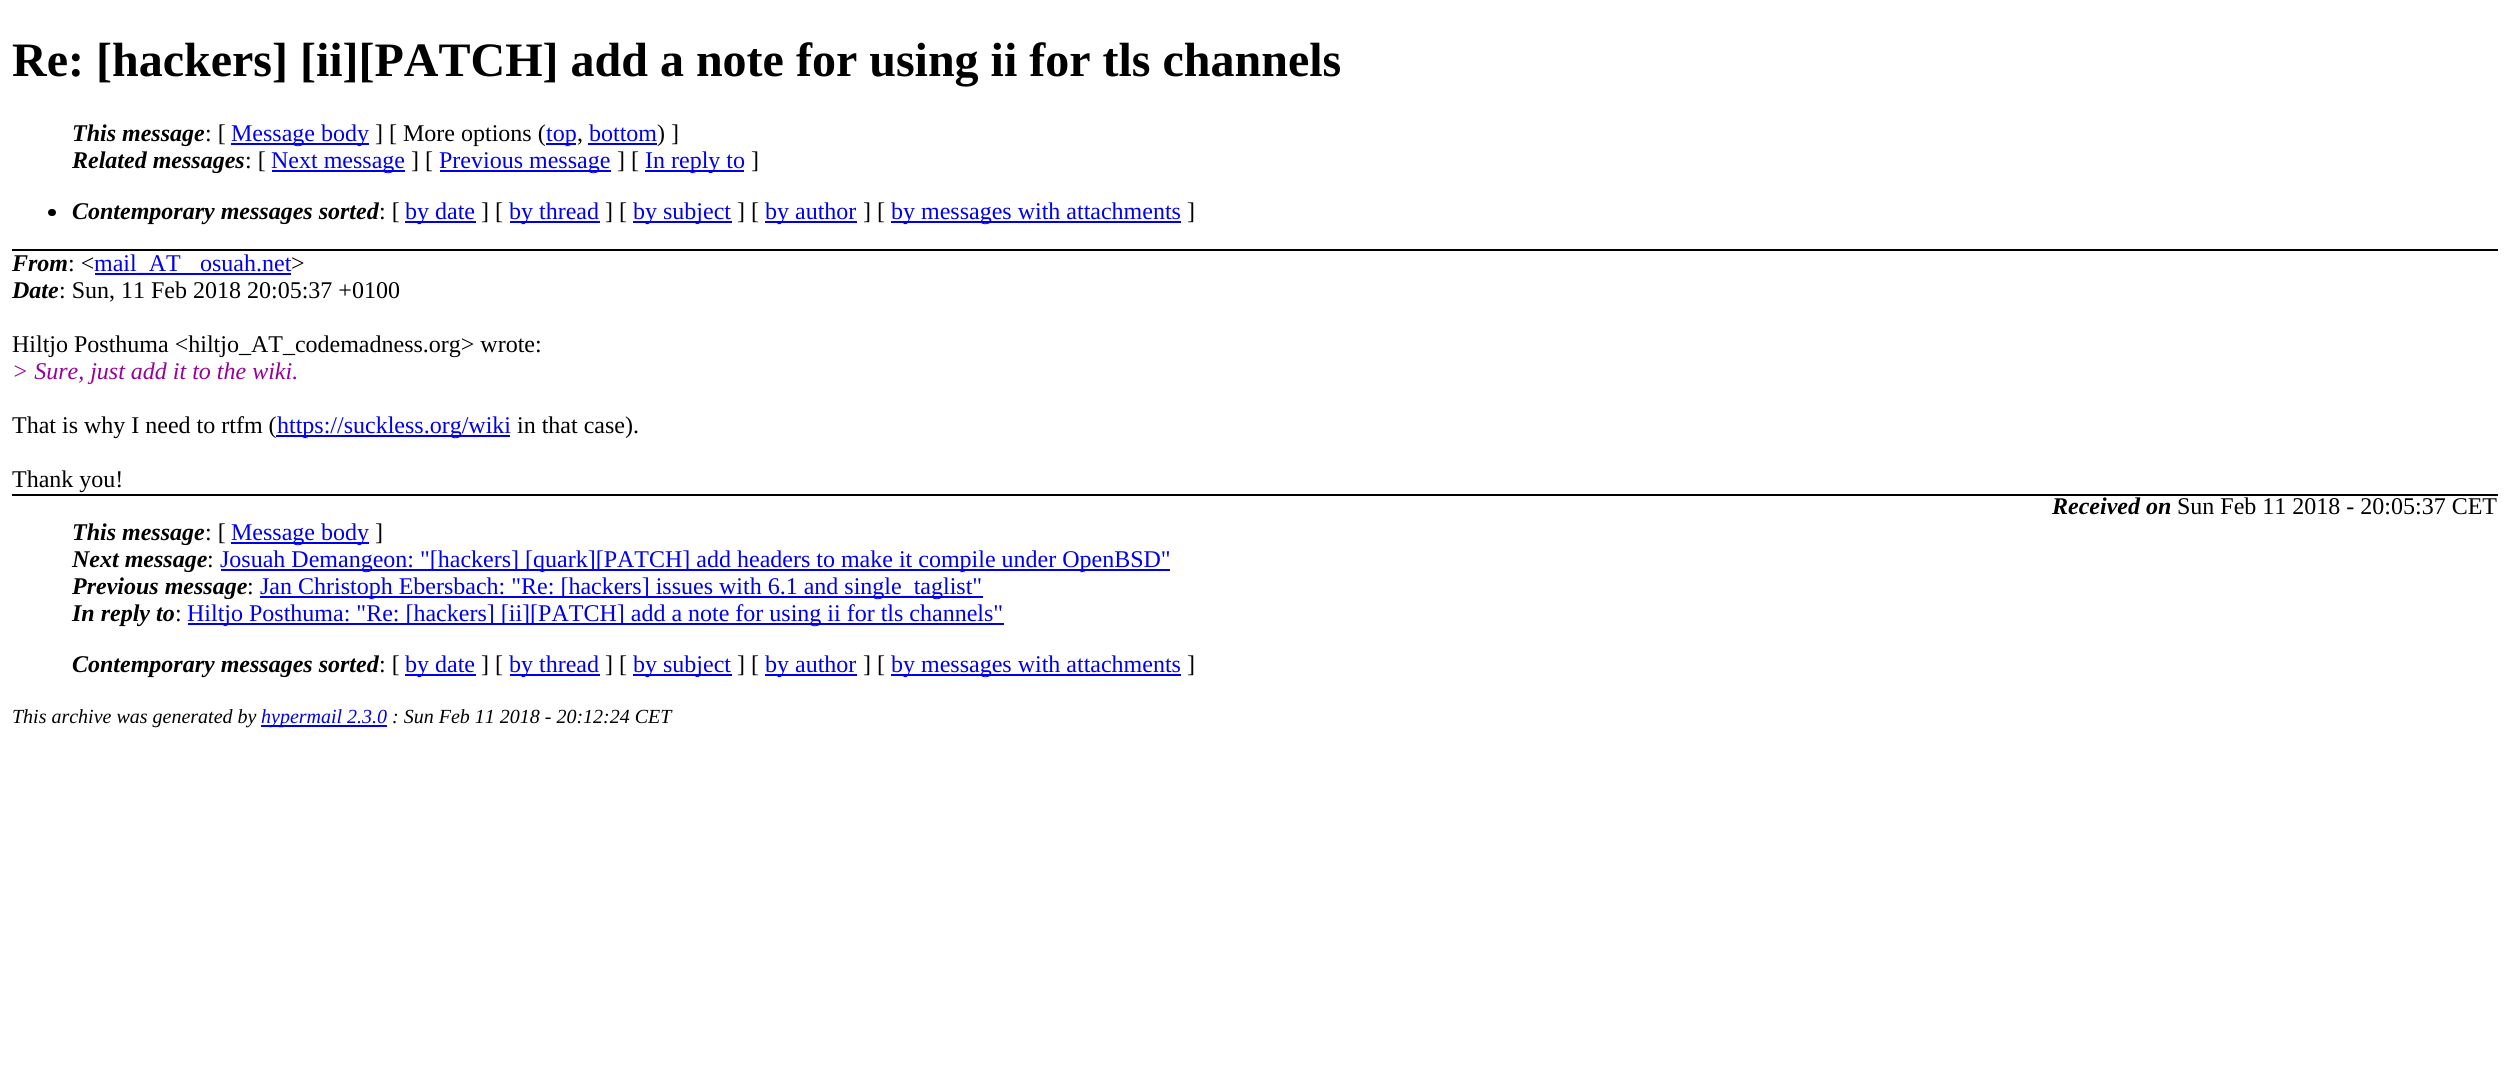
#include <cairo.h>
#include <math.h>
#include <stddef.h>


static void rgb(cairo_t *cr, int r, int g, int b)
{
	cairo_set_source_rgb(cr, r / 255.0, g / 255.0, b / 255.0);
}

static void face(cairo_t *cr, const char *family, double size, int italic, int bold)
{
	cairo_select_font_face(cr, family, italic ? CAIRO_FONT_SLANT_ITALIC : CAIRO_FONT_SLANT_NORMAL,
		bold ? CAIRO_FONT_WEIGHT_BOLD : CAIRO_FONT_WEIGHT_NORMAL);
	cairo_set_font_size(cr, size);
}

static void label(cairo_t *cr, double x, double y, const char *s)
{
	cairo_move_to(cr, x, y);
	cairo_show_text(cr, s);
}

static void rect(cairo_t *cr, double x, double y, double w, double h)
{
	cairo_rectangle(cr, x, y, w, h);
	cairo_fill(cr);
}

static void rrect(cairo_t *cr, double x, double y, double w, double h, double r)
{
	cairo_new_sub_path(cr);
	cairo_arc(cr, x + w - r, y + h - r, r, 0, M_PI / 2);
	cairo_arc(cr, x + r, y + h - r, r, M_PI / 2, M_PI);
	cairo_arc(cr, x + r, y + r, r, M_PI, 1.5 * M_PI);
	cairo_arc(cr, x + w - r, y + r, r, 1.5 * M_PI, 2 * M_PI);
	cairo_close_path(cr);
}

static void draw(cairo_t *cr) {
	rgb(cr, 255, 255, 255);
	cairo_paint(cr);
	rgb(cr, 0, 0, 0);
	rect(cr, 12, 249, 2486, 2);
	face(cr, "Liberation Serif", 48, 0, 1);
	label(cr, 12, 76, "Re: [hackers] [ii][PATCH] add a note for using ii for tls channels");
	face(cr, "Liberation Serif", 24, 1, 1);
	label(cr, 72, 141, "This message");
	face(cr, "Liberation Serif", 24, 0, 0);
	label(cr, 205, 141, ": [");
	rgb(cr, 0, 0, 238);
	rect(cr, 231, 143, 138, 2);
	label(cr, 231, 141, "Message body");
	rgb(cr, 0, 0, 0);
	label(cr, 375, 141, "] [ More options (");
	rgb(cr, 0, 0, 238);
	rect(cr, 546, 143, 30, 2);
	label(cr, 546, 141, "top");
	rgb(cr, 0, 0, 0);
	label(cr, 577, 141, ",");
	rgb(cr, 0, 0, 238);
	label(cr, 589, 141, "bottom");
	rect(cr, 588, 143, 69, 2);
	rgb(cr, 0, 0, 0);
	label(cr, 657, 141, ") ]");
	face(cr, "Liberation Serif", 24, 1, 1);
	label(cr, 72, 168, "Related messages");
	face(cr, "Liberation Serif", 24, 0, 0);
	label(cr, 245, 168, ": [");
	rgb(cr, 0, 0, 238);
	rect(cr, 272, 170, 133, 2);
	label(cr, 271, 168, "Next message");
	rgb(cr, 0, 0, 0);
	label(cr, 411, 168, "] [");
	rgb(cr, 0, 0, 238);
	rect(cr, 440, 170, 171, 2);
	label(cr, 439, 168, "Previous message");
	rgb(cr, 0, 0, 0);
	label(cr, 617, 168, "] [");
	rgb(cr, 0, 0, 238);
	rect(cr, 645, 170, 99, 2);
	label(cr, 645, 168, "In reply to");
	rgb(cr, 0, 0, 0);
	label(cr, 751, 168, "]");
	rrect(cr, 48, 209, 8, 7, 3.5);
	cairo_fill(cr);
	face(cr, "Liberation Serif", 24, 1, 1);
	label(cr, 72, 219, "Contemporary messages sorted");
	face(cr, "Liberation Serif", 24, 0, 0);
	label(cr, 379, 219, ": [");
	rgb(cr, 0, 0, 238);
	rect(cr, 405, 221, 71, 2);
	label(cr, 405, 219, "by date");
	rgb(cr, 0, 0, 0);
	label(cr, 481, 219, "] [");
	rgb(cr, 0, 0, 238);
	rect(cr, 510, 221, 90, 2);
	label(cr, 509, 219, "by thread");
	rgb(cr, 0, 0, 0);
	label(cr, 605, 219, "] [");
	rgb(cr, 0, 0, 238);
	rect(cr, 633, 221, 99, 2);
	label(cr, 633, 219, "by subject");
	rgb(cr, 0, 0, 0);
	label(cr, 737, 219, "] [");
	rgb(cr, 0, 0, 238);
	rect(cr, 765, 221, 92, 2);
	label(cr, 765, 219, "by author");
	rgb(cr, 0, 0, 0);
	label(cr, 863, 219, "] [");
	rgb(cr, 0, 0, 238);
	rect(cr, 891, 221, 290, 2);
	label(cr, 891, 219, "by messages with attachments");
	rgb(cr, 0, 0, 0);
	label(cr, 1187, 219, "]");
	face(cr, "Liberation Serif", 24, 1, 1);
	label(cr, 12, 271, "From");
	face(cr, "Liberation Serif", 24, 0, 0);
	label(cr, 68, 271, ": <");
	rgb(cr, 0, 0, 238);
	rect(cr, 95, 273, 196, 2);
	label(cr, 94, 271, "mail_AT");
	label(cr, 200, 271, "osuah.net");
	rgb(cr, 0, 0, 0);
	label(cr, 291, 271, ">");
	face(cr, "Liberation Serif", 24, 1, 1);
	label(cr, 12, 298, "Date");
	face(cr, "Liberation Serif", 24, 0, 0);
	label(cr, 59, 298, ": Sun, 11 Feb 2018 20:05:37 +0100");
	label(cr, 12, 352, "Hiltjo Posthuma <hiltjo_AT_codemadness.org> wrote:");
	face(cr, "Liberation Serif", 24, 1, 0);
	rgb(cr, 153, 0, 153);
	label(cr, 12, 379, "> Sure, just add it to the wiki.");
	face(cr, "Liberation Serif", 24, 0, 0);
	rgb(cr, 0, 0, 0);
	label(cr, 12, 433, "That is why I need to rtfm (");
	rgb(cr, 0, 0, 238);
	rect(cr, 276, 435, 234, 2);
	label(cr, 277, 433, "https://suckless.org/wiki");
	rgb(cr, 0, 0, 0);
	label(cr, 517, 433, "in that case).");
	label(cr, 12, 487, "Thank you!");
	face(cr, "Liberation Serif", 24, 1, 1);
	label(cr, 2052, 514, "Received on");
	face(cr, "Liberation Serif", 24, 0, 0);
	label(cr, 2177, 514, "Sun Feb 11 2018 - 20:05:37 CET");
	rect(cr, 12, 494, 2486, 2);
	face(cr, "Liberation Serif", 24, 1, 1);
	label(cr, 72, 540, "This message");
	face(cr, "Liberation Serif", 24, 0, 0);
	label(cr, 205, 540, ": [");
	rgb(cr, 0, 0, 238);
	rect(cr, 231, 542, 138, 2);
	label(cr, 231, 540, "Message body");
	rgb(cr, 0, 0, 0);
	label(cr, 375, 540, "]");
	face(cr, "Liberation Serif", 24, 1, 1);
	label(cr, 72, 567, "Next message");
	face(cr, "Liberation Serif", 24, 0, 0);
	label(cr, 207, 567, ":");
	rgb(cr, 0, 0, 238);
	rect(cr, 221, 569, 949, 2);
	label(cr, 220, 567, "Josuah Demangeon: \"[hackers] [quark][PATCH] add headers to make it compile under OpenBSD\"");
	face(cr, "Liberation Serif", 24, 1, 1);
	rgb(cr, 0, 0, 0);
	label(cr, 72, 594, "Previous message");
	face(cr, "Liberation Serif", 24, 0, 0);
	label(cr, 247, 594, ":");
	rgb(cr, 0, 0, 238);
	rect(cr, 260, 596, 723, 2);
	label(cr, 260, 594, "Jan Christoph Ebersbach: \"Re: [hackers] issues with 6.1 and single_taglist\"");
	face(cr, "Liberation Serif", 24, 1, 1);
	rgb(cr, 0, 0, 0);
	label(cr, 72, 621, "In reply to");
	face(cr, "Liberation Serif", 24, 0, 0);
	label(cr, 175, 621, ":");
	rgb(cr, 0, 0, 238);
	rect(cr, 188, 623, 816, 2);
	label(cr, 187, 621, "Hiltjo Posthuma: \"Re: [hackers] [ii][PATCH] add a note for using ii for tls channels\"");
	face(cr, "Liberation Serif", 24, 1, 1);
	rgb(cr, 0, 0, 0);
	label(cr, 72, 672, "Contemporary messages sorted");
	face(cr, "Liberation Serif", 24, 0, 0);
	label(cr, 379, 672, ": [");
	rgb(cr, 0, 0, 238);
	rect(cr, 405, 674, 71, 2);
	label(cr, 405, 672, "by date");
	rgb(cr, 0, 0, 0);
	label(cr, 481, 672, "] [");
	rgb(cr, 0, 0, 238);
	rect(cr, 510, 674, 90, 2);
	label(cr, 509, 672, "by thread");
	rgb(cr, 0, 0, 0);
	label(cr, 605, 672, "] [");
	rgb(cr, 0, 0, 238);
	rect(cr, 633, 674, 99, 2);
	label(cr, 633, 672, "by subject");
	rgb(cr, 0, 0, 0);
	label(cr, 737, 672, "] [");
	rgb(cr, 0, 0, 238);
	rect(cr, 765, 674, 92, 2);
	label(cr, 765, 672, "by author");
	rgb(cr, 0, 0, 0);
	label(cr, 863, 672, "] [");
	rgb(cr, 0, 0, 238);
	rect(cr, 891, 674, 290, 2);
	label(cr, 891, 672, "by messages with attachments");
	rgb(cr, 0, 0, 0);
	label(cr, 1187, 672, "]");
	face(cr, "Liberation Serif", 20, 1, 0);
	label(cr, 12, 723, "This archive was generated by");
	rgb(cr, 0, 0, 238);
	rect(cr, 261, 725, 126, 2);
	label(cr, 261, 723, "hypermail 2.3.0");
	rgb(cr, 0, 0, 0);
	label(cr, 392, 723, ": Sun Feb 11 2018 - 20:12:24 CET");
}

int main(void) {
	cairo_surface_t *surface = cairo_image_surface_create(CAIRO_FORMAT_RGB24, 2509, 1081);
	cairo_t *cr = cairo_create(surface);
	cairo_font_options_t *options = cairo_font_options_create();
	cairo_font_options_set_hint_metrics(options, CAIRO_HINT_METRICS_OFF);
	cairo_font_options_set_hint_style(options, CAIRO_HINT_STYLE_NONE);
	cairo_set_font_options(cr, options);
	cairo_set_miter_limit(cr, 4);
	draw(cr);
	cairo_surface_write_to_png(surface, "render.png");
	cairo_font_options_destroy(options);
	cairo_destroy(cr);
	cairo_surface_destroy(surface);
	return 0;
}
